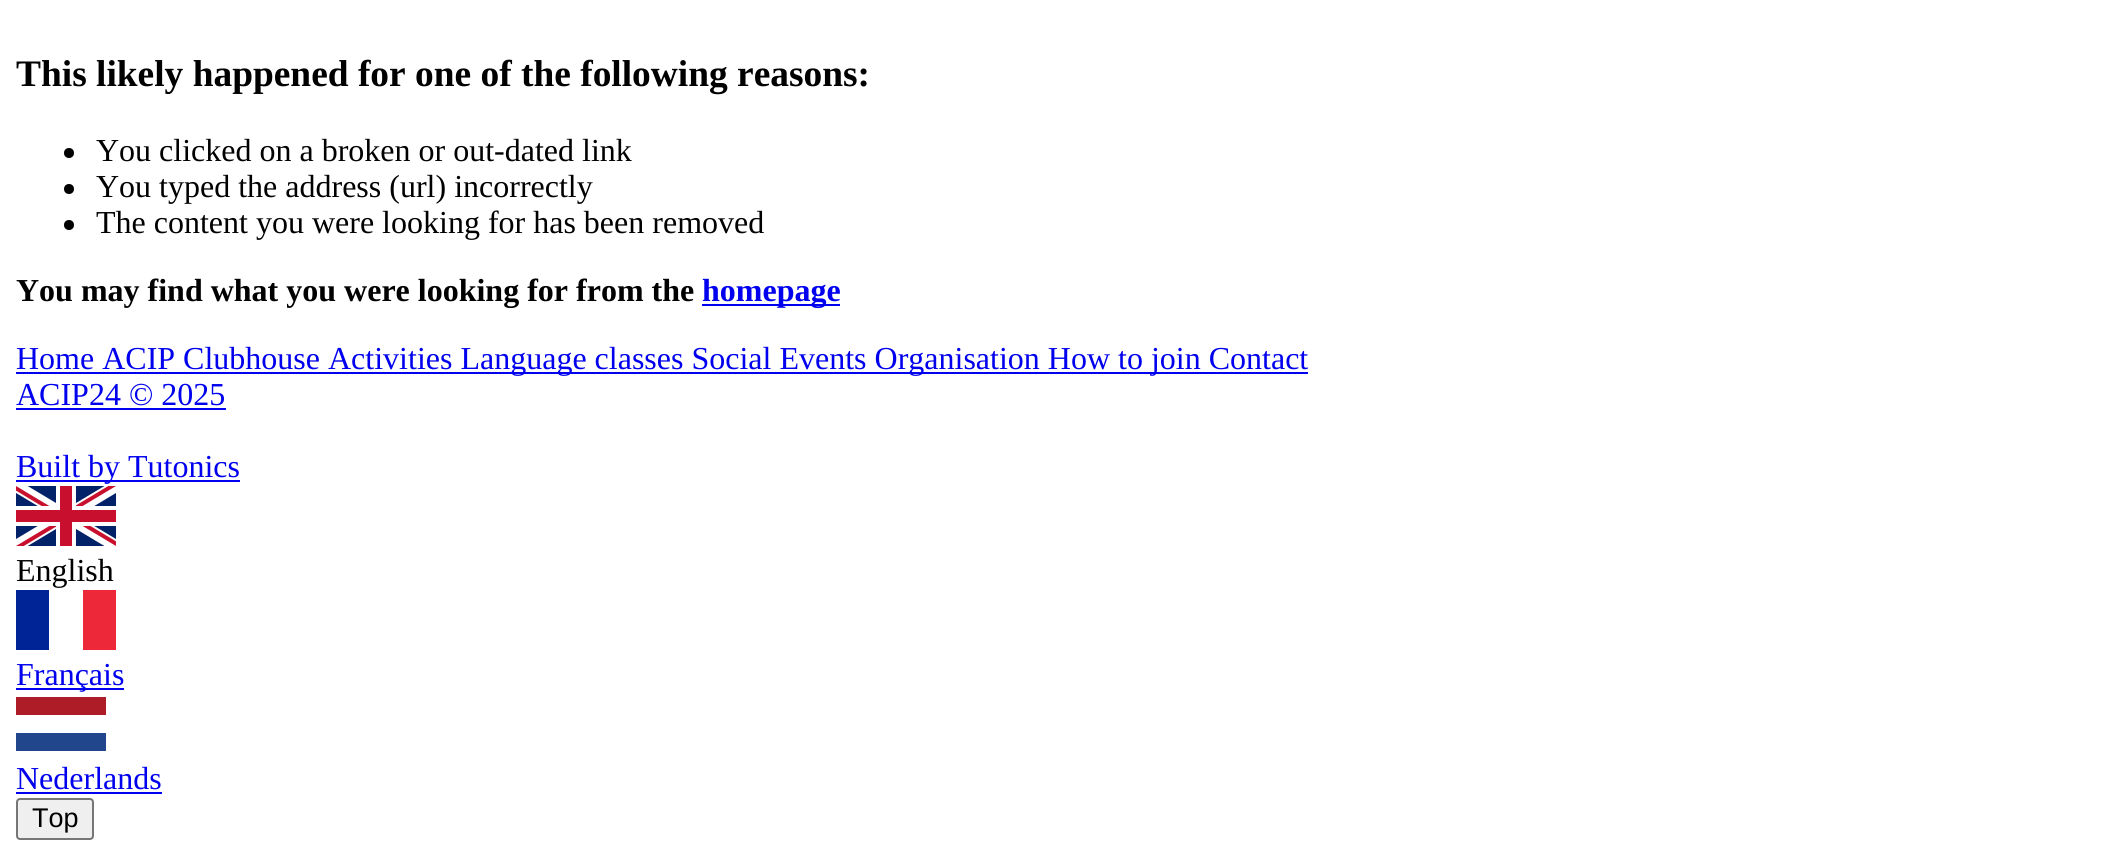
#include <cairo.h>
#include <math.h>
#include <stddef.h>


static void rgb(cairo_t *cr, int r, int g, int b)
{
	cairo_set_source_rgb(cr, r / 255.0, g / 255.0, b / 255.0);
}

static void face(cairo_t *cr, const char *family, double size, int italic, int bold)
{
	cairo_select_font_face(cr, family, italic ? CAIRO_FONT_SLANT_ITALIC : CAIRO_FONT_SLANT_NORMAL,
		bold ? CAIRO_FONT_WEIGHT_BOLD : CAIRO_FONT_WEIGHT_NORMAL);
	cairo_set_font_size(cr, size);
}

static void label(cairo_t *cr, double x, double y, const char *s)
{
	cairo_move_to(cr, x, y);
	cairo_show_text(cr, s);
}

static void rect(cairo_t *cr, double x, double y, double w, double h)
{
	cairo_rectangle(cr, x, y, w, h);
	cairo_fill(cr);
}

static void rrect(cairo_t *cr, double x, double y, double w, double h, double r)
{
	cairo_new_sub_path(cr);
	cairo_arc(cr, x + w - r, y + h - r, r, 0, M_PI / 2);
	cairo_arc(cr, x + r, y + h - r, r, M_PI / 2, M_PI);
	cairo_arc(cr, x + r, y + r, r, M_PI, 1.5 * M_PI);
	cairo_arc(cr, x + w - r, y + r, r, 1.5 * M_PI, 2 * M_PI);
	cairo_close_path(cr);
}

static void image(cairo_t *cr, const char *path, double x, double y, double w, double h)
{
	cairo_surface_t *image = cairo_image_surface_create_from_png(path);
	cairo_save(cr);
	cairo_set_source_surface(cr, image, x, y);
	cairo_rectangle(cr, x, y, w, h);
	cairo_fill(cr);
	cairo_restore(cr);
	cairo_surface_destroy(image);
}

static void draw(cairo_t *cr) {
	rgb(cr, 255, 255, 255);
	cairo_paint(cr);
	face(cr, "Liberation Serif", 37.4, 0, 1);
	rgb(cr, 0, 0, 0);
	label(cr, 16, 86, "This likely happened for one of the following reasons:");
	cairo_new_path(cr);
	cairo_arc(cr, 69, 153, 5, 0, 2 * M_PI);
	cairo_fill(cr);
	face(cr, "Liberation Serif", 32, 0, 0);
	label(cr, 96, 161, "You clicked on a broken or out-dated link");
	cairo_new_path(cr);
	cairo_arc(cr, 69, 189, 5, 0, 2 * M_PI);
	cairo_fill(cr);
	label(cr, 96, 197, "You typed the address (url) incorrectly");
	cairo_new_path(cr);
	cairo_arc(cr, 69, 225, 5, 0, 2 * M_PI);
	cairo_fill(cr);
	label(cr, 96, 233, "The content you were looking for has been removed");
	face(cr, "Liberation Serif", 32, 0, 1);
	label(cr, 16, 301, "You may find what you were looking for from the");
	rgb(cr, 0, 0, 238);
	rect(cr, 702, 304, 138, 2);
	label(cr, 702, 301, "homepage");
	rect(cr, 16, 372, 1292, 2);
	face(cr, "Liberation Serif", 32, 0, 0);
	label(cr, 16, 369, "Home ACIP Clubhouse Activities Language classes Social Events Organisation How to join Contact");
	label(cr, 16, 405, "ACIP24 © 2025");
	rect(cr, 16, 408, 210, 2);
	rect(cr, 16, 480, 224, 2);
	label(cr, 16, 477, "Built by Tutonics");
	image(cr, "image0.png", 16, 486, 100, 60);
	rgb(cr, 0, 0, 0);
	label(cr, 16, 581, "English");
	rgb(cr, 0, 35, 149);
	rect(cr, 16, 590, 33, 60);
	rgb(cr, 237, 41, 57);
	rect(cr, 83, 590, 33, 60);
	rgb(cr, 0, 0, 238);
	rect(cr, 16, 688, 108, 2);
	label(cr, 16, 685, "Français");
	rgb(cr, 174, 28, 40);
	rect(cr, 16, 697, 90, 18);
	rgb(cr, 33, 70, 139);
	rect(cr, 16, 733, 90, 18);
	rgb(cr, 0, 0, 238);
	label(cr, 16, 789, "Nederlands");
	rect(cr, 16, 792, 146, 2);
	rgb(cr, 239, 239, 239);
	rrect(cr, 17, 799, 76, 40, 3);
	cairo_fill_preserve(cr);
	rgb(cr, 118, 118, 118);
	cairo_stroke(cr);
	face(cr, "Liberation Sans", 27, 0, 0);
	rgb(cr, 0, 0, 0);
	label(cr, 32, 827, "Top");
}

int main(void) {
	cairo_surface_t *surface = cairo_image_surface_create(CAIRO_FORMAT_RGB24, 2122, 855);
	cairo_t *cr = cairo_create(surface);
	cairo_font_options_t *options = cairo_font_options_create();
	cairo_font_options_set_hint_metrics(options, CAIRO_HINT_METRICS_OFF);
	cairo_font_options_set_hint_style(options, CAIRO_HINT_STYLE_NONE);
	cairo_set_font_options(cr, options);
	cairo_set_miter_limit(cr, 4);
	draw(cr);
	cairo_surface_write_to_png(surface, "render.png");
	cairo_font_options_destroy(options);
	cairo_destroy(cr);
	cairo_surface_destroy(surface);
	return 0;
}
